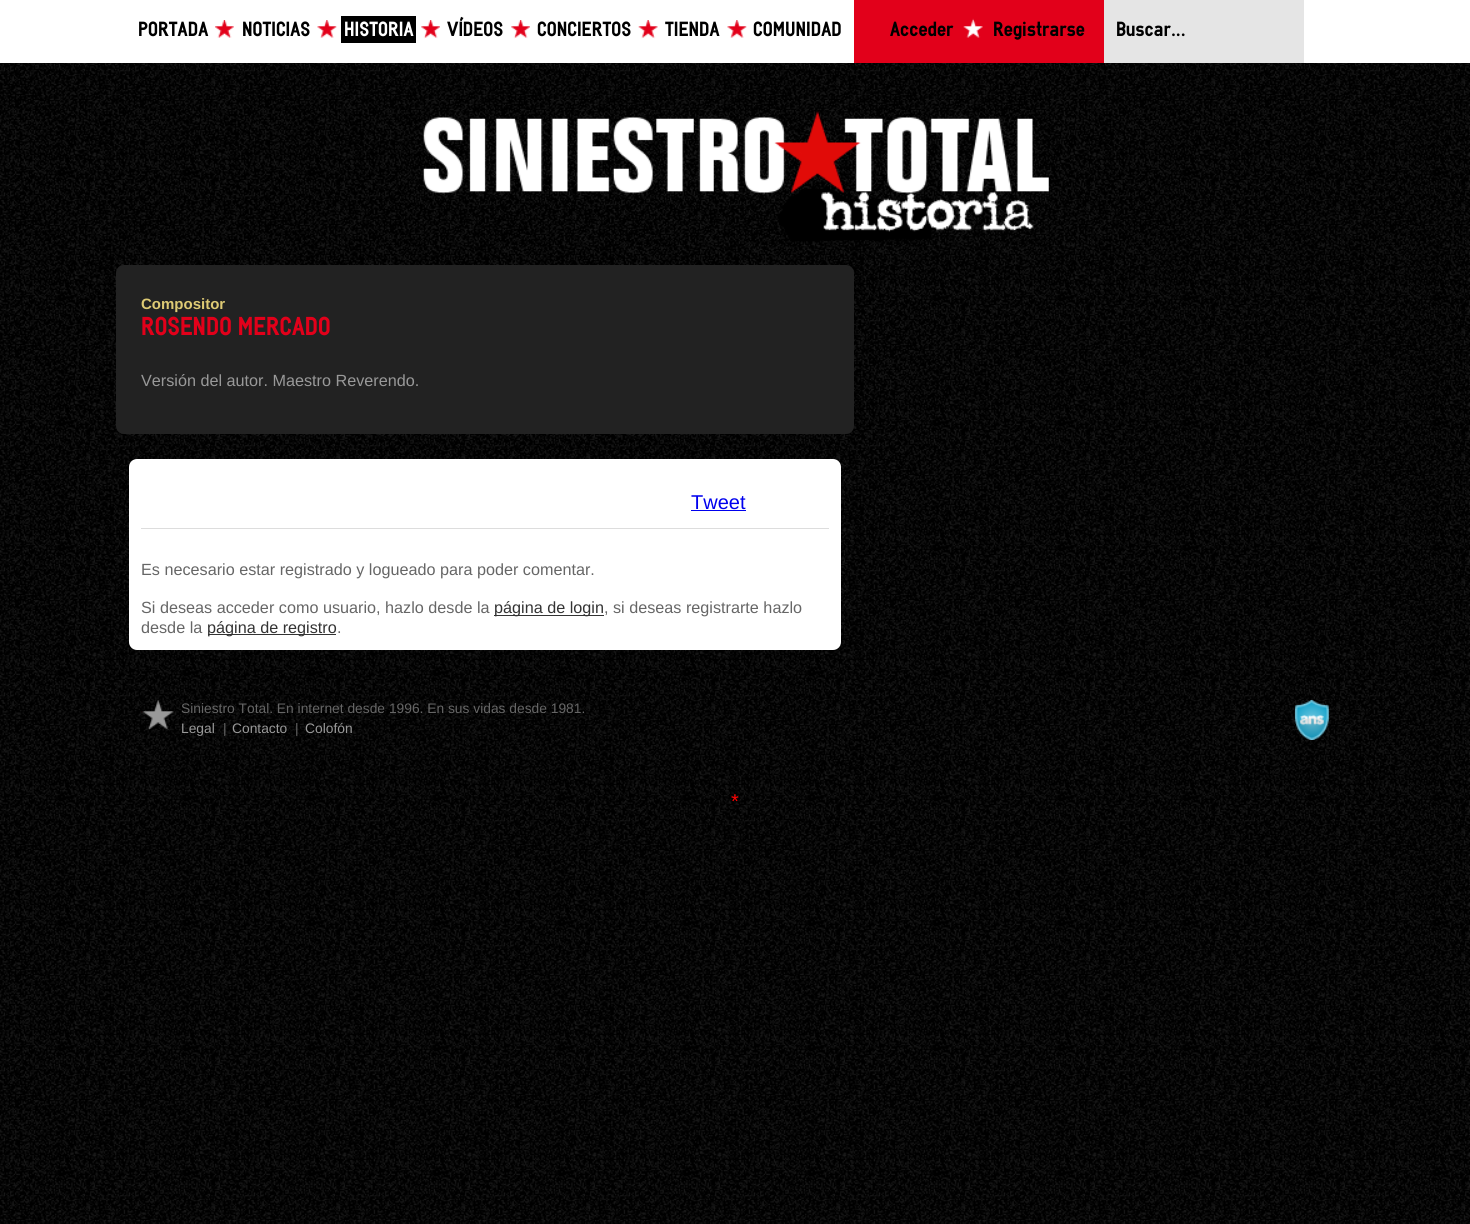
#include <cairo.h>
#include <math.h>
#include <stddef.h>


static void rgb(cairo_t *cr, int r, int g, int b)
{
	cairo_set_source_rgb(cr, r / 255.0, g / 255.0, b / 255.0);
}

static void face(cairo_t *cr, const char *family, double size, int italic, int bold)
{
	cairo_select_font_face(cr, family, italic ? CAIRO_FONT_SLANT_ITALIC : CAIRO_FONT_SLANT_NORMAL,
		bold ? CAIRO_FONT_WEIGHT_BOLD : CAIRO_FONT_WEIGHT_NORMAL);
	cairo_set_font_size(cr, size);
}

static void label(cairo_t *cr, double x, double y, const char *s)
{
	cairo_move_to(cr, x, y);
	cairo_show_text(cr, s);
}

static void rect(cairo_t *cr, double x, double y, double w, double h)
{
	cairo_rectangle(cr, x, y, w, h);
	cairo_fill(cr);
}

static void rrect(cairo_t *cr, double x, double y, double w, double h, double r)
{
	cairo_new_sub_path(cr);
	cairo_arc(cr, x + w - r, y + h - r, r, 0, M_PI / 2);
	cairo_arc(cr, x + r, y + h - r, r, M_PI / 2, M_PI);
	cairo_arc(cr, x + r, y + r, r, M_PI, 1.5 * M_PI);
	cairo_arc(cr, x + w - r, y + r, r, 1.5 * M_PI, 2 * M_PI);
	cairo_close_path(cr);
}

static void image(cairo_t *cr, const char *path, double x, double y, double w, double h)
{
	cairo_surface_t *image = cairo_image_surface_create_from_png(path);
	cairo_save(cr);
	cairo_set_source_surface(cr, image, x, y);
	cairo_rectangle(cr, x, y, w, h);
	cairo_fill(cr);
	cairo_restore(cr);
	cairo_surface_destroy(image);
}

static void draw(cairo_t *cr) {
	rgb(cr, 255, 255, 255);
	cairo_paint(cr);
	image(cr, "image0.png", 0, 63, 1470, 1161);
	image(cr, "image1.png", 215, 20, 19, 18);
	face(cr, "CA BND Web", 20, 0, 1);
	rgb(cr, 0, 0, 0);
	label(cr, 138, 36, "PORTADA");
	image(cr, "image2.png", 317, 20, 20, 18);
	label(cr, 242, 36, "NOTICIAS");
	image(cr, "image3.png", 421, 20, 19, 19);
	rect(cr, 341, 16, 75, 27);
	rgb(cr, 255, 255, 255);
	label(cr, 344, 36, "HISTORIA");
	image(cr, "image3.png", 511, 20, 19, 19);
	rgb(cr, 0, 0, 0);
	label(cr, 447, 36, "VÍDEOS");
	image(cr, "image4.png", 638, 20, 20, 19);
	label(cr, 537, 36, "CONCIERTOS");
	image(cr, "image2.png", 727, 20, 20, 18);
	label(cr, 665, 36, "TIENDA");
	label(cr, 753, 36, "COMUNIDAD");
	rgb(cr, 226, 0, 26);
	rect(cr, 854, 0, 250, 63);
	image(cr, "image5.png", 963, 18, 20, 20);
	rgb(cr, 0, 0, 0);
	label(cr, 890, 36, "Acceder");
	label(cr, 993, 36, "Registrarse");
	rgb(cr, 229, 229, 229);
	rect(cr, 1104, 0, 200, 63);
	rgb(cr, 0, 0, 0);
	label(cr, 1116, 36, "Buscar...");
	image(cr, "image6.png", 401, 100, 668, 147);
	rgb(cr, 34, 34, 34);
	rrect(cr, 116, 265, 738, 169, 8);
	cairo_fill(cr);
	face(cr, "Liberation Sans", 15, 0, 1);
	rgb(cr, 222, 202, 116);
	label(cr, 141, 309, "Compositor");
	face(cr, "CA BND Web", 25.25, 0, 1);
	rgb(cr, 226, 0, 26);
	label(cr, 141, 335, "ROSENDO MERCADO");
	face(cr, "Liberation Sans", 16.2, 0, 0);
	rgb(cr, 153, 153, 153);
	label(cr, 141, 386, "Versión del autor. Maestro Reverendo.");
	rgb(cr, 255, 255, 255);
	rrect(cr, 129, 459, 712, 191, 8);
	cairo_fill(cr);
	rgb(cr, 221, 221, 221);
	rect(cr, 141, 528, 688, 1);
	face(cr, "Liberation Sans", 20, 0, 0);
	rgb(cr, 0, 0, 238);
	label(cr, 691, 509, "Tweet");
	rect(cr, 691, 510, 55, 1);
	face(cr, "Liberation Sans", 16.2, 0, 0);
	rgb(cr, 102, 102, 102);
	label(cr, 141, 575, "Es necesario estar registrado y logueado para poder comentar.");
	label(cr, 141, 613, "Si deseas acceder como usuario, hazlo desde la");
	rgb(cr, 51, 51, 51);
	rect(cr, 494, 615, 110, 1);
	label(cr, 494, 613, "página de login");
	rgb(cr, 102, 102, 102);
	label(cr, 604, 613, ", si deseas registrarte hazlo");
	label(cr, 141, 633, "desde la");
	rgb(cr, 51, 51, 51);
	rect(cr, 208, 634, 128, 1);
	label(cr, 207, 633, "página de registro");
	rgb(cr, 102, 102, 102);
	label(cr, 337, 633, ".");
	image(cr, "image7.png", 141, 700, 33, 30);
	face(cr, "Liberation Sans", 13.8, 0, 0);
	label(cr, 181, 713, "Siniestro Total. En internet desde 1996. En sus vidas desde 1981.");
	rgb(cr, 153, 153, 153);
	label(cr, 181, 733, "Legal");
	rgb(cr, 102, 102, 102);
	label(cr, 223, 733, "|");
	rgb(cr, 153, 153, 153);
	label(cr, 232, 733, "Contacto");
	rgb(cr, 102, 102, 102);
	label(cr, 295, 733, "|");
	rgb(cr, 153, 153, 153);
	label(cr, 305, 733, "Colofón");
	image(cr, "image8.png", 1294, 700, 35, 40);
	face(cr, "Liberation Sans", 20, 0, 0);
	rgb(cr, 255, 0, 0);
	label(cr, 731, 808, "*");
}

int main(void) {
	cairo_surface_t *surface = cairo_image_surface_create(CAIRO_FORMAT_RGB24, 1470, 1224);
	cairo_t *cr = cairo_create(surface);
	cairo_font_options_t *options = cairo_font_options_create();
	cairo_font_options_set_hint_metrics(options, CAIRO_HINT_METRICS_OFF);
	cairo_font_options_set_hint_style(options, CAIRO_HINT_STYLE_NONE);
	cairo_set_font_options(cr, options);
	cairo_set_miter_limit(cr, 4);
	draw(cr);
	cairo_surface_write_to_png(surface, "render.png");
	cairo_font_options_destroy(options);
	cairo_destroy(cr);
	cairo_surface_destroy(surface);
	return 0;
}
